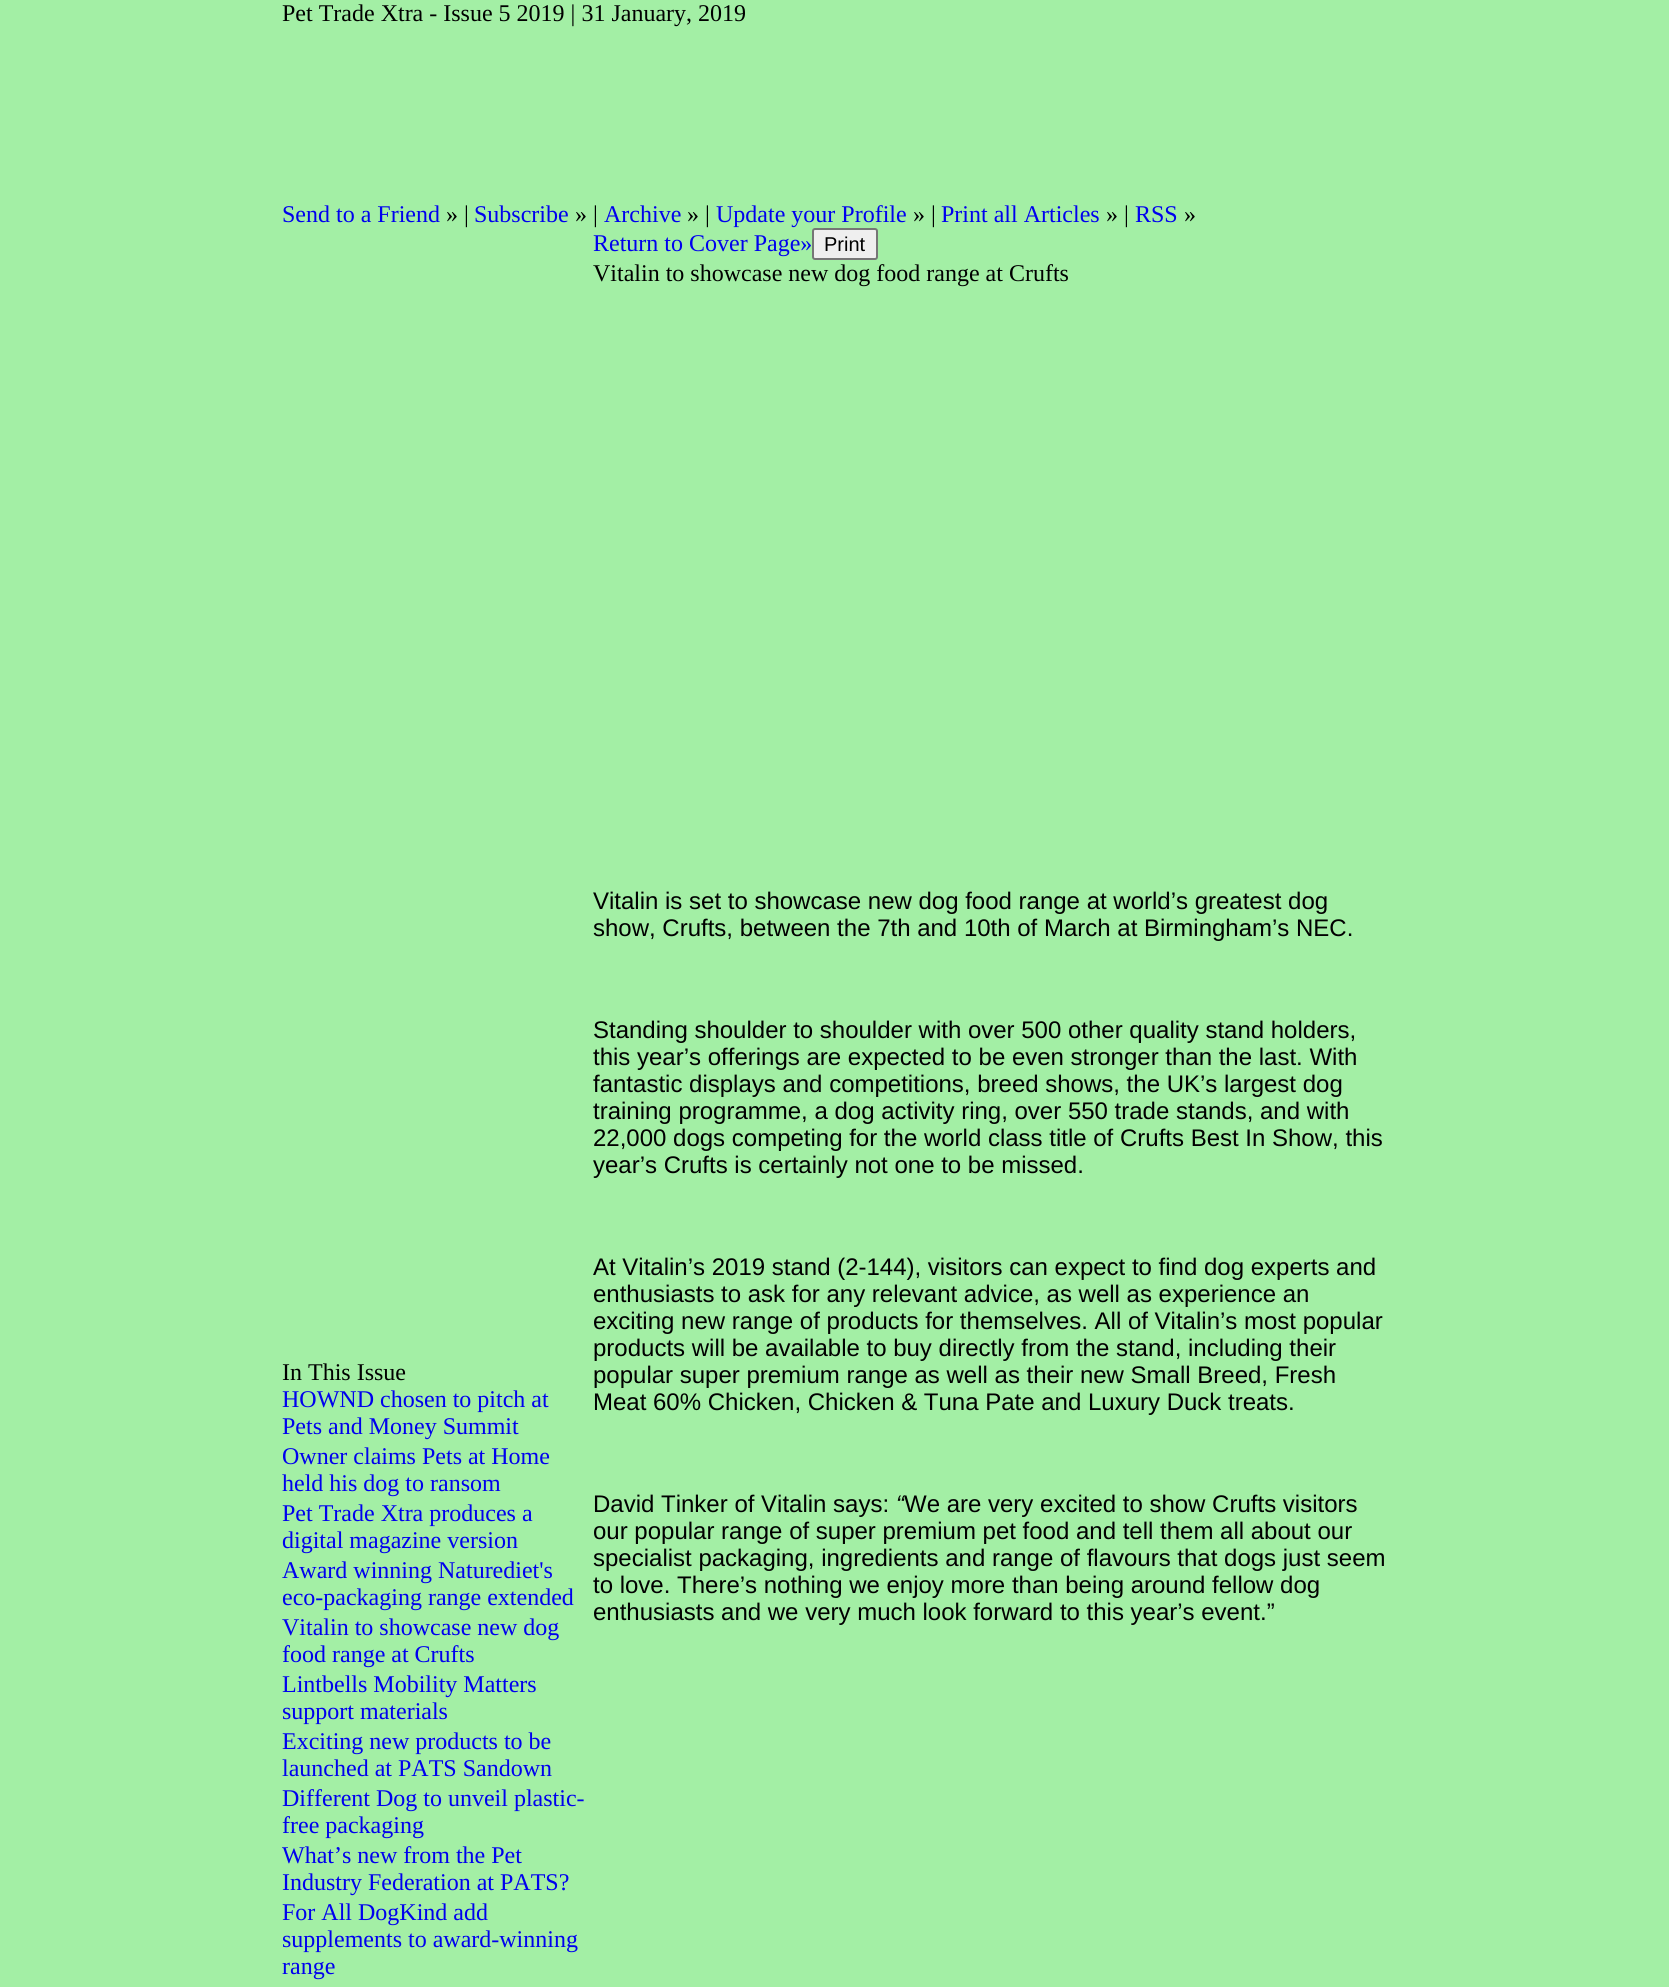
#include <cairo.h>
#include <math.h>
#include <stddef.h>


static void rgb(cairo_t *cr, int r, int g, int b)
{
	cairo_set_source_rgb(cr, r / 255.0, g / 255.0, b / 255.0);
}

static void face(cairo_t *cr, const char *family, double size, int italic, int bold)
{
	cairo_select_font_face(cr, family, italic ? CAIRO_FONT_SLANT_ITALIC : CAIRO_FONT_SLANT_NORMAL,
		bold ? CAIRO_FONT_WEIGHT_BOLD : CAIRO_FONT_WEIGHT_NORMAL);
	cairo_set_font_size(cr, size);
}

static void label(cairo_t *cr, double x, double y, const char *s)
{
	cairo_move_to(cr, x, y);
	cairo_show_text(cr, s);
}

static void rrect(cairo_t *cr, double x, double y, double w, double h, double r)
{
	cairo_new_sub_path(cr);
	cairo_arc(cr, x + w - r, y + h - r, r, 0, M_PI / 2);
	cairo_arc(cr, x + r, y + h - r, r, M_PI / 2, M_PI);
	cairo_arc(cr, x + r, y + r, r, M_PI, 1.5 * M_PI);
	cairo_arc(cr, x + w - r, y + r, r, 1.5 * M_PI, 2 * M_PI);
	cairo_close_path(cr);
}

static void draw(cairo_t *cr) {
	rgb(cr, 163, 239, 165);
	cairo_paint(cr);
	face(cr, "Liberation Serif", 24, 0, 0);
	rgb(cr, 0, 0, 0);
	label(cr, 282, 21, "Pet Trade Xtra - Issue 5 2019 | 31 January, 2019");
	rgb(cr, 0, 0, 238);
	label(cr, 282, 222, "Send to a Friend");
	rgb(cr, 0, 0, 0);
	label(cr, 446, 222, "» |");
	rgb(cr, 0, 0, 238);
	label(cr, 474, 222, "Subscribe");
	rgb(cr, 0, 0, 0);
	label(cr, 575, 222, "» |");
	rgb(cr, 0, 0, 238);
	label(cr, 604, 222, "Archive");
	rgb(cr, 0, 0, 0);
	label(cr, 687, 222, "» |");
	rgb(cr, 0, 0, 238);
	label(cr, 716, 222, "Update your Profile");
	rgb(cr, 0, 0, 0);
	label(cr, 913, 222, "» |");
	rgb(cr, 0, 0, 238);
	label(cr, 941, 222, "Print all Articles");
	rgb(cr, 0, 0, 0);
	label(cr, 1106, 222, "» |");
	rgb(cr, 0, 0, 238);
	label(cr, 1135, 222, "RSS");
	rgb(cr, 0, 0, 0);
	label(cr, 1184, 222, "»");
	label(cr, 282, 1380, "In This Issue");
	rgb(cr, 0, 0, 238);
	label(cr, 282, 1407, "HOWND chosen to pitch at");
	label(cr, 282, 1434, "Pets and Money Summit");
	label(cr, 282, 1464, "Owner claims Pets at Home");
	label(cr, 282, 1491, "held his dog to ransom");
	label(cr, 282, 1521, "Pet Trade Xtra produces a");
	label(cr, 282, 1548, "digital magazine version");
	label(cr, 282, 1578, "Award winning Naturediet's");
	label(cr, 282, 1605, "eco-packaging range extended");
	label(cr, 282, 1635, "Vitalin to showcase new dog");
	label(cr, 282, 1662, "food range at Crufts");
	label(cr, 282, 1692, "Lintbells Mobility Matters");
	label(cr, 282, 1719, "support materials");
	label(cr, 282, 1749, "Exciting new products to be");
	label(cr, 282, 1776, "launched at PATS Sandown");
	label(cr, 282, 1806, "Different Dog to unveil plastic-");
	label(cr, 282, 1833, "free packaging");
	label(cr, 282, 1863, "What’s new from the Pet");
	label(cr, 282, 1890, "Industry Federation at PATS?");
	label(cr, 282, 1920, "For All DogKind add");
	label(cr, 282, 1947, "supplements to award-winning");
	label(cr, 282, 1974, "range");
	label(cr, 593, 251, "Return to Cover Page»");
	rgb(cr, 239, 239, 239);
	rrect(cr, 813, 229, 64, 30, 2);
	cairo_fill_preserve(cr);
	rgb(cr, 118, 118, 118);
	cairo_stroke(cr);
	face(cr, "Liberation Sans", 20, 0, 0);
	rgb(cr, 0, 0, 0);
	label(cr, 824, 251, "Print");
	face(cr, "Liberation Serif", 24, 0, 0);
	label(cr, 593, 281, "Vitalin to showcase new dog food range at Crufts");
	face(cr, "Liberation Sans", 24, 0, 0);
	label(cr, 593, 909, "Vitalin is set to showcase new dog food range at world’s greatest dog");
	label(cr, 593, 936, "show, Crufts, between the 7th and 10th of March at Birmingham’s NEC.");
	label(cr, 593, 1038, "Standing shoulder to shoulder with over 500 other quality stand holders,");
	label(cr, 593, 1065, "this year’s offerings are expected to be even stronger than the last. With");
	label(cr, 593, 1092, "fantastic displays and competitions, breed shows, the UK’s largest dog");
	label(cr, 593, 1119, "training programme, a dog activity ring, over 550 trade stands, and with");
	label(cr, 593, 1146, "22,000 dogs competing for the world class title of Crufts Best In Show, this");
	label(cr, 593, 1173, "year’s Crufts is certainly not one to be missed.");
	label(cr, 593, 1275, "At Vitalin’s 2019 stand (2-144), visitors can expect to find dog experts and");
	label(cr, 593, 1302, "enthusiasts to ask for any relevant advice, as well as experience an");
	label(cr, 593, 1329, "exciting new range of products for themselves. All of Vitalin’s most popular");
	label(cr, 593, 1356, "products will be available to buy directly from the stand, including their");
	label(cr, 593, 1383, "popular super premium range as well as their new Small Breed, Fresh");
	label(cr, 593, 1410, "Meat 60% Chicken, Chicken & Tuna Pate and Luxury Duck treats.");
	label(cr, 593, 1512, "David Tinker of Vitalin says:");
	face(cr, "Liberation Sans", 24, 1, 0);
	label(cr, 896, 1512, "“");
	face(cr, "Liberation Sans", 24, 0, 0);
	label(cr, 904, 1512, "We are very excited to show Crufts visitors");
	label(cr, 593, 1539, "our popular range of super premium pet food and tell them all about our");
	label(cr, 593, 1566, "specialist packaging, ingredients and range of flavours that dogs just seem");
	label(cr, 593, 1593, "to love. There’s nothing we enjoy more than being around fellow dog");
	label(cr, 593, 1620, "enthusiasts and we very much look forward to this year’s event.”");
}

int main(void) {
	cairo_surface_t *surface = cairo_image_surface_create(CAIRO_FORMAT_RGB24, 1669, 1987);
	cairo_t *cr = cairo_create(surface);
	cairo_font_options_t *options = cairo_font_options_create();
	cairo_font_options_set_hint_metrics(options, CAIRO_HINT_METRICS_OFF);
	cairo_font_options_set_hint_style(options, CAIRO_HINT_STYLE_NONE);
	cairo_set_font_options(cr, options);
	cairo_set_miter_limit(cr, 4);
	draw(cr);
	cairo_surface_write_to_png(surface, "render.png");
	cairo_font_options_destroy(options);
	cairo_destroy(cr);
	cairo_surface_destroy(surface);
	return 0;
}
